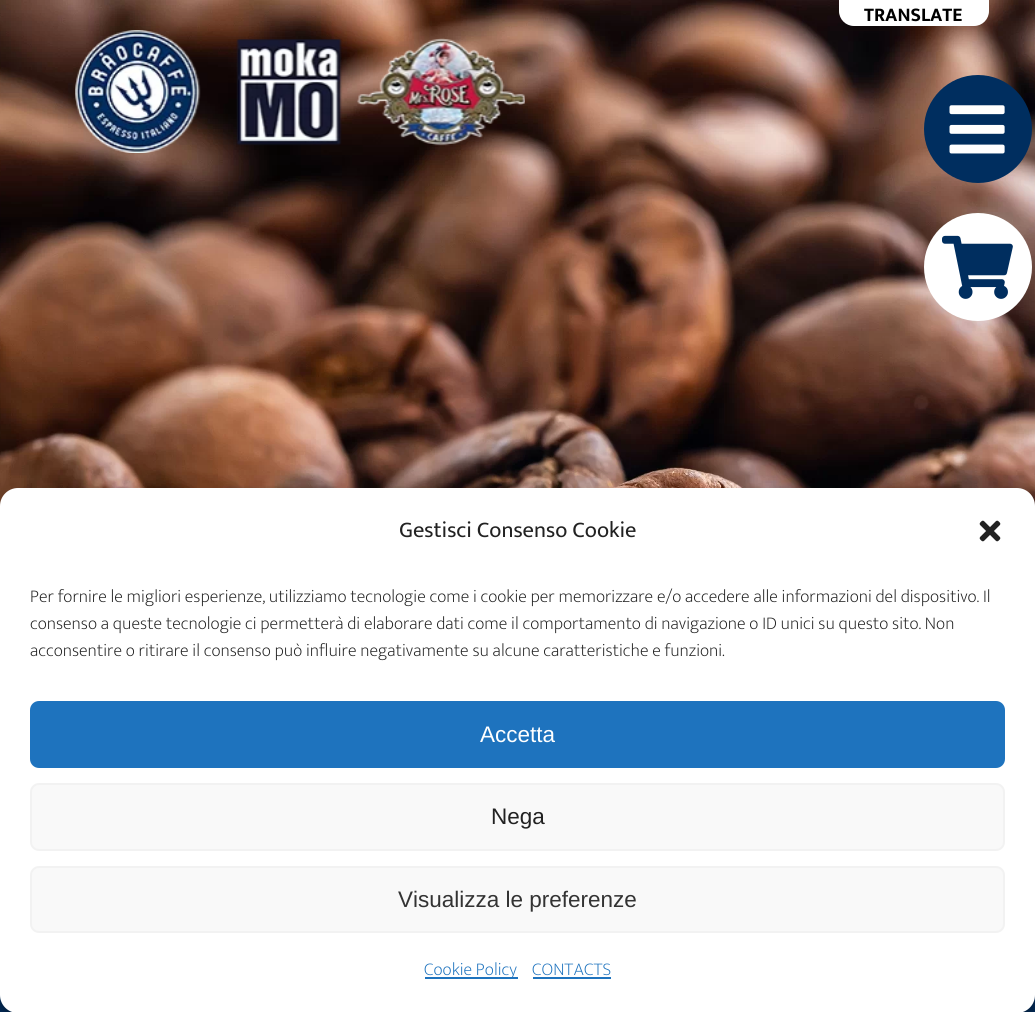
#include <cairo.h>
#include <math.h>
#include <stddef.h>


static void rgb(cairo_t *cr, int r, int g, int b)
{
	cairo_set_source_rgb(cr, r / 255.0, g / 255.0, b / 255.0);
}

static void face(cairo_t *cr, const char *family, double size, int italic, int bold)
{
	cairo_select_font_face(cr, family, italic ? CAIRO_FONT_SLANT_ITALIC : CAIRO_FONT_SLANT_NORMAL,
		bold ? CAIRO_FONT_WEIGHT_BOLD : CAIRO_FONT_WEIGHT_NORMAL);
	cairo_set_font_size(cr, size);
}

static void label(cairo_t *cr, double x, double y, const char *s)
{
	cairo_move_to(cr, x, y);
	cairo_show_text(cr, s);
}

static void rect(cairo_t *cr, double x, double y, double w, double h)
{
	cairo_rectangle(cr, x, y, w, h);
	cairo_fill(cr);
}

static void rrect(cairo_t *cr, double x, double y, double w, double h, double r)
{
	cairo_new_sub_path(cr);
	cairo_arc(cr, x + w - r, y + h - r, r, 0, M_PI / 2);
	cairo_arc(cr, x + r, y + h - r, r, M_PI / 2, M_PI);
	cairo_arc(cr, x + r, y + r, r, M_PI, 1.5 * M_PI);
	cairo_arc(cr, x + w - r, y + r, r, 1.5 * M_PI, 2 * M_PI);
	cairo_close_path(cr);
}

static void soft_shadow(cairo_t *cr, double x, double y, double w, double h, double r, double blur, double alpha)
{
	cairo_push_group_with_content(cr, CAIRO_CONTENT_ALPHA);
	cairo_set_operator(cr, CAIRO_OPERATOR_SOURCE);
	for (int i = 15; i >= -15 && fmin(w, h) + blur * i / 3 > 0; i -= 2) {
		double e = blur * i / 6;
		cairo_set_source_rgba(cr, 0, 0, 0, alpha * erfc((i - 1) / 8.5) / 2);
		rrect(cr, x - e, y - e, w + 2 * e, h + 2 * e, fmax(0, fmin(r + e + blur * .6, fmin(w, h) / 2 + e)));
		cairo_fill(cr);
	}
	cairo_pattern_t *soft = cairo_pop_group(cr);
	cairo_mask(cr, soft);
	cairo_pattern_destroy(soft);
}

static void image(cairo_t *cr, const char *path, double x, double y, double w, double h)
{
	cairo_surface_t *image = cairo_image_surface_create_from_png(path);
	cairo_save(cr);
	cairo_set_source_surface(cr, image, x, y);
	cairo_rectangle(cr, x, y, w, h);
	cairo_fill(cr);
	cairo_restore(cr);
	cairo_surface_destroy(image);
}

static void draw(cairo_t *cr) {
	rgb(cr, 255, 255, 255);
	cairo_paint(cr);
	image(cr, "image0.png", 0, 0, 1035, 506);
	image(cr, "image1.png", 0, 995, 1035, 17);
	rgb(cr, 255, 255, 255);
	rrect(cr, 839, -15, 150, 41, 15);
	cairo_fill(cr);
	face(cr, "Mukta", 19.5, 0, 1);
	rgb(cr, 0, 0, 0);
	label(cr, 864, 21, "TRANSLATE");
	rgb(cr, 0, 46, 95);
	cairo_new_path(cr);
	cairo_arc(cr, 978, 129, 54, 0, 2 * M_PI);
	cairo_fill(cr);
	image(cr, "image2.png", 949, 105, 56, 49);
	rgb(cr, 255, 255, 255);
	cairo_arc(cr, 978, 267, 54, 0, 2 * M_PI);
	cairo_fill(cr);
	image(cr, "image3.png", 942, 235, 71, 64);
	image(cr, "image4.png", 75, 30, 450, 123);
	rgb(cr, 0, 0, 0);
	soft_shadow(cr, 0, 497, 1035, 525, 18, 4.5, 0.23);
	soft_shadow(cr, 0, 503, 1035, 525, 18, 15, 0.19);
	rgb(cr, 255, 255, 255);
	rrect(cr, 0, 488, 1035, 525, 18);
	cairo_fill(cr);
	face(cr, "Mukta", 22.5, 0, 0);
	rgb(cr, 34, 34, 34);
	label(cr, 399, 537, "Gestisci Consenso Cookie");
	image(cr, "image5.png", 979, 520, 22, 22);
	face(cr, "Mukta ExtraLight", 18, 0, 0);
	label(cr, 30, 602, "Per fornire le migliori esperienze, utilizziamo tecnologie come i cookie per memorizzare e/o accedere alle informazioni del dispositivo. Il");
	label(cr, 30, 629, "consenso a queste tecnologie ci permetterà di elaborare dati come il comportamento di navigazione o ID unici su questo sito. Non");
	label(cr, 30, 656, "acconsentire o ritirare il consenso può influire negativamente su alcune caratteristiche e funzioni.");
	rgb(cr, 30, 115, 190);
	rrect(cr, 31, 702, 973, 65, 8);
	cairo_fill_preserve(cr);
	cairo_stroke(cr);
	face(cr, "Liberation Sans", 22.5, 0, 0);
	rgb(cr, 255, 255, 255);
	label(cr, 480, 742, "Accetta");
	rgb(cr, 249, 249, 249);
	rrect(cr, 31, 784, 973, 66, 8);
	cairo_fill_preserve(cr);
	rgb(cr, 242, 242, 242);
	cairo_stroke(cr);
	rgb(cr, 34, 34, 34);
	label(cr, 491, 824, "Nega");
	rgb(cr, 249, 249, 249);
	rrect(cr, 31, 867, 973, 65, 8);
	cairo_fill_preserve(cr);
	rgb(cr, 242, 242, 242);
	cairo_stroke(cr);
	rgb(cr, 51, 51, 51);
	label(cr, 398, 907, "Visualizza le preferenze");
	rgb(cr, 30, 115, 190);
	rect(cr, 425, 977, 93, 2);
	face(cr, "Mukta ExtraLight", 18, 0, 0);
	label(cr, 424, 975, "Cookie Policy");
	label(cr, 532, 975, "CONTACTS");
	rect(cr, 533, 977, 78, 2);
}

int main(void) {
	cairo_surface_t *surface = cairo_image_surface_create(CAIRO_FORMAT_RGB24, 1035, 1012);
	cairo_t *cr = cairo_create(surface);
	cairo_font_options_t *options = cairo_font_options_create();
	cairo_font_options_set_hint_metrics(options, CAIRO_HINT_METRICS_OFF);
	cairo_font_options_set_hint_style(options, CAIRO_HINT_STYLE_NONE);
	cairo_set_font_options(cr, options);
	cairo_set_miter_limit(cr, 4);
	draw(cr);
	cairo_surface_write_to_png(surface, "render.png");
	cairo_font_options_destroy(options);
	cairo_destroy(cr);
	cairo_surface_destroy(surface);
	return 0;
}
